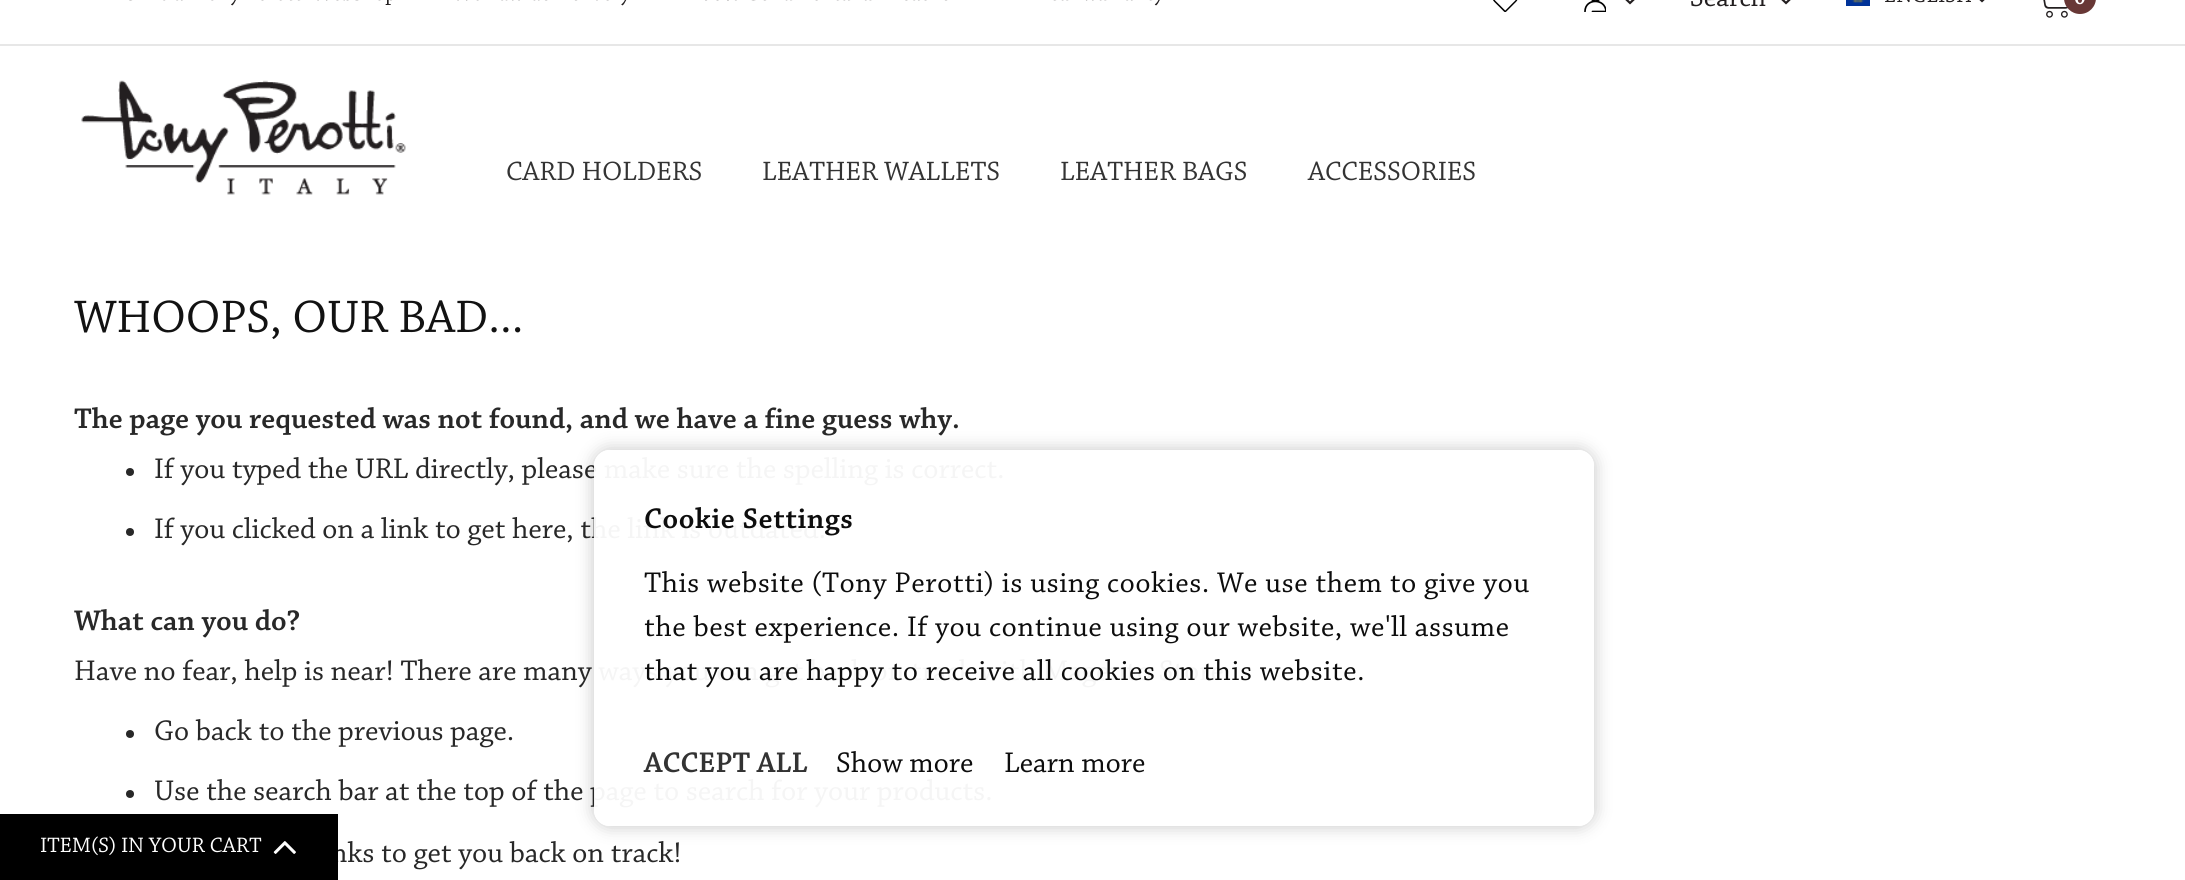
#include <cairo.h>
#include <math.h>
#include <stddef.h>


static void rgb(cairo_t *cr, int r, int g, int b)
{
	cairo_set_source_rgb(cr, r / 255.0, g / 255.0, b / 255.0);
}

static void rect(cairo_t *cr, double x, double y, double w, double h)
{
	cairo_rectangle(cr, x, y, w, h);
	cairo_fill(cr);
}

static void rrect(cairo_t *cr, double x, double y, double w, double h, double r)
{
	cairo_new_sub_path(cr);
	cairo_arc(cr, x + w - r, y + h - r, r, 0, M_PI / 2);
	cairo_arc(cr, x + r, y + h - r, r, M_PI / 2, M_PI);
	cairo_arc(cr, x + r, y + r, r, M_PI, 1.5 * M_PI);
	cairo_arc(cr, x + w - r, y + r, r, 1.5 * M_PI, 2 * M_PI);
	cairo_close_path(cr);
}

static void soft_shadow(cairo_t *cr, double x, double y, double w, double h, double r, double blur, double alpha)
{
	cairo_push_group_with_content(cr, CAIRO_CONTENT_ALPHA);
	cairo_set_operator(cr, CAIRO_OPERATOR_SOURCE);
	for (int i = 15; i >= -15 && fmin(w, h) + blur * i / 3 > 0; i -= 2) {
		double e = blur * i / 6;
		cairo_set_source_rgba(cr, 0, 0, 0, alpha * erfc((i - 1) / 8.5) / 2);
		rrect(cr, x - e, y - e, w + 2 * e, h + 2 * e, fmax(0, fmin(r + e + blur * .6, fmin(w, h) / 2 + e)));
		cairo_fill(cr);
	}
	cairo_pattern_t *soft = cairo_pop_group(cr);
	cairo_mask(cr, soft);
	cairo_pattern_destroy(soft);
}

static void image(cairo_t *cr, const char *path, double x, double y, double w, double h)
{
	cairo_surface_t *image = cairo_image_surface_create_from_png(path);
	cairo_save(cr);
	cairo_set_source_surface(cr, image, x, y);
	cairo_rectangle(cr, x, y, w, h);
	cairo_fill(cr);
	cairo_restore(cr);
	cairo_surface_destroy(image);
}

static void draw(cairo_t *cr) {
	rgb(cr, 255, 255, 255);
	cairo_paint(cr);
	rgb(cr, 231, 231, 231);
	rect(cr, 0, 44, 2185, 2);
	image(cr, "image0.png", 129, 0, 263, 6);
	image(cr, "image1.png", 457, 0, 170, 6);
	image(cr, "image2.png", 705, 0, 243, 1);
	image(cr, "image3.png", 1053, 0, 107, 6);
	image(cr, "image4.png", 1493, 0, 25, 12);
	cairo_arc(cr, 1595.5, -4, 5, 0, 2 * M_PI);
	rgb(cr, 0, 0, 0);
	cairo_set_line_width(cr, 1.7);
	cairo_stroke(cr);
	cairo_save(cr);
	cairo_rectangle(cr, 1584, 0, 22, 12);
	cairo_clip(cr);
	cairo_new_path(cr);
	cairo_move_to(cr, 1585, 11.5);
	cairo_curve_to(cr, 1585, -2, 1605.5, -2, 1606, 11.5);
	cairo_line_to(cr, 1592.5, 11.5);
	cairo_set_line_cap(cr, CAIRO_LINE_CAP_ROUND);
	cairo_stroke(cr);
	cairo_restore(cr);
	rgb(cr, 35, 31, 32);
	cairo_new_path(cr);
	cairo_move_to(cr, 1630, 1.5);
	cairo_line_to(cr, 1622, -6);
	cairo_line_to(cr, 1620.5, -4.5);
	cairo_line_to(cr, 1630, 4.5);
	cairo_line_to(cr, 1639.5, -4.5);
	cairo_line_to(cr, 1638, -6);
	cairo_close_path(cr);
	cairo_fill(cr);
	image(cr, "image5.png", 1691, 0, 75, 7);
	cairo_new_path(cr);
	cairo_move_to(cr, 1786, 1.5);
	cairo_line_to(cr, 1778, -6);
	cairo_line_to(cr, 1776.5, -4.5);
	cairo_line_to(cr, 1786, 4.5);
	cairo_line_to(cr, 1795.5, -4.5);
	cairo_line_to(cr, 1794, -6);
	cairo_close_path(cr);
	cairo_fill(cr);
	image(cr, "image6.png", 1846, 0, 24, 6);
	image(cr, "image7.png", 1885, 0, 86, 3);
	cairo_new_path(cr);
	cairo_move_to(cr, 1982, -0.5);
	cairo_line_to(cr, 1974, -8);
	cairo_line_to(cr, 1972.5, -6.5);
	cairo_line_to(cr, 1982, 2.5);
	cairo_line_to(cr, 1991.5, -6.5);
	cairo_line_to(cr, 1990, -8);
	cairo_close_path(cr);
	cairo_fill(cr);
	image(cr, "image8.png", 2043, 0, 25, 18);
	rgb(cr, 104, 56, 54);
	rrect(cr, 2064, -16, 32, 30, 16);
	cairo_fill(cr);
	image(cr, "image9.png", 2075, 0, 10, 5);
	image(cr, "image10.png", 81, 80, 325, 115);
	image(cr, "image11.png", 507, 161, 194, 20);
	image(cr, "image12.png", 763, 161, 236, 20);
	image(cr, "image13.png", 1061, 161, 185, 20);
	image(cr, "image14.png", 1307, 161, 168, 20);
	image(cr, "image15.png", 74, 300, 447, 40);
	image(cr, "image16.png", 74, 407, 884, 29);
	rgb(cr, 40, 40, 40);
	cairo_arc(cr, 130, 472, 4, 0, 2 * M_PI);
	cairo_fill(cr);
	image(cr, "image17.png", 155, 457, 848, 29);
	cairo_arc(cr, 130, 532, 4, 0, 2 * M_PI);
	cairo_fill(cr);
	image(cr, "image18.png", 155, 517, 669, 29);
	image(cr, "image19.png", 74, 609, 226, 29);
	image(cr, "image20.png", 75, 659, 1155, 29);
	cairo_arc(cr, 130, 734, 4, 0, 2 * M_PI);
	cairo_fill(cr);
	image(cr, "image21.png", 155, 719, 97, 22);
	image(cr, "image22.png", 259, 719, 254, 29);
	cairo_arc(cr, 130, 794, 4, 0, 2 * M_PI);
	cairo_fill(cr);
	image(cr, "image23.png", 155, 779, 836, 29);
	image(cr, "image24.png", 338, 841, 341, 29);
	rgb(cr, 0, 0, 0);
	rect(cr, 0, 814, 338, 66);
	image(cr, "image25.png", 41, 836, 221, 20);
	image(cr, "image26.png", 273, 841, 23, 13);
	cairo_save(cr);
	cairo_set_fill_rule(cr, CAIRO_FILL_RULE_EVEN_ODD);
	cairo_new_path(cr);
	cairo_move_to(cr, 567, 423);
	cairo_line_to(cr, 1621, 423);
	cairo_line_to(cr, 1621, 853);
	cairo_line_to(cr, 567, 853);
	cairo_close_path(cr);
	cairo_move_to(cr, 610, 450);
	cairo_line_to(cr, 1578, 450);
	cairo_curve_to(cr, 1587, 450, 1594, 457, 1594, 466);
	cairo_line_to(cr, 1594, 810);
	cairo_curve_to(cr, 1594, 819, 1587, 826, 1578, 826);
	cairo_line_to(cr, 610, 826);
	cairo_curve_to(cr, 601, 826, 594, 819, 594, 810);
	cairo_line_to(cr, 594, 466);
	cairo_curve_to(cr, 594, 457, 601, 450, 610, 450);
	cairo_close_path(cr);
	cairo_clip(cr);
	rgb(cr, 0, 0, 0);
	soft_shadow(cr, 592, 448, 1004, 380, 18, 8, 0.19);
	cairo_restore(cr);
	cairo_set_source_rgba(cr, 1, 1, 1, 0.95);
	rrect(cr, 594, 450, 1000, 376, 16);
	cairo_fill(cr);
	image(cr, "image27.png", 645, 507, 207, 29);
	image(cr, "image28.png", 644, 570, 885, 30);
	image(cr, "image29.png", 644, 615, 864, 29);
	image(cr, "image30.png", 644, 659, 719, 29);
	image(cr, "image31.png", 643, 752, 165, 21);
	image(cr, "image32.png", 837, 751, 136, 22);
	image(cr, "image33.png", 1005, 752, 140, 21);
}

int main(void) {
	cairo_surface_t *surface = cairo_image_surface_create(CAIRO_FORMAT_RGB24, 2185, 880);
	cairo_t *cr = cairo_create(surface);
	cairo_font_options_t *options = cairo_font_options_create();
	cairo_font_options_set_hint_metrics(options, CAIRO_HINT_METRICS_OFF);
	cairo_font_options_set_hint_style(options, CAIRO_HINT_STYLE_NONE);
	cairo_set_font_options(cr, options);
	cairo_set_miter_limit(cr, 4);
	draw(cr);
	cairo_surface_write_to_png(surface, "render.png");
	cairo_font_options_destroy(options);
	cairo_destroy(cr);
	cairo_surface_destroy(surface);
	return 0;
}
